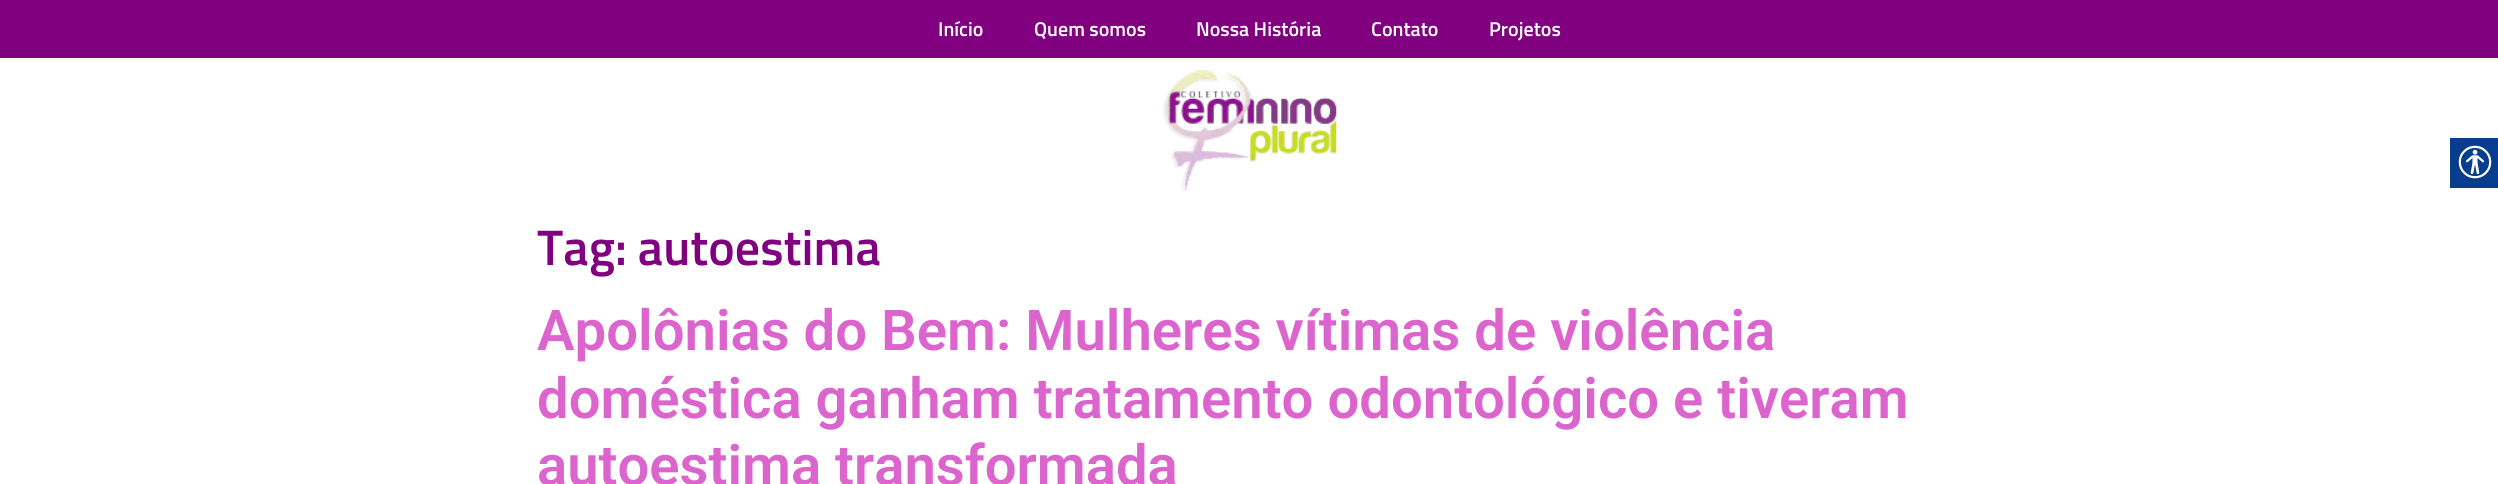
#include <cairo.h>
#include <math.h>
#include <stddef.h>


static void rgb(cairo_t *cr, int r, int g, int b)
{
	cairo_set_source_rgb(cr, r / 255.0, g / 255.0, b / 255.0);
}

static void face(cairo_t *cr, const char *family, double size, int italic, int bold)
{
	cairo_select_font_face(cr, family, italic ? CAIRO_FONT_SLANT_ITALIC : CAIRO_FONT_SLANT_NORMAL,
		bold ? CAIRO_FONT_WEIGHT_BOLD : CAIRO_FONT_WEIGHT_NORMAL);
	cairo_set_font_size(cr, size);
}

static void label(cairo_t *cr, double x, double y, const char *s)
{
	cairo_move_to(cr, x, y);
	cairo_show_text(cr, s);
}

static void rect(cairo_t *cr, double x, double y, double w, double h)
{
	cairo_rectangle(cr, x, y, w, h);
	cairo_fill(cr);
}

static void image(cairo_t *cr, const char *path, double x, double y, double w, double h)
{
	cairo_surface_t *image = cairo_image_surface_create_from_png(path);
	cairo_save(cr);
	cairo_set_source_surface(cr, image, x, y);
	cairo_rectangle(cr, x, y, w, h);
	cairo_fill(cr);
	cairo_restore(cr);
	cairo_surface_destroy(image);
}

static void draw(cairo_t *cr) {
	rgb(cr, 255, 255, 255);
	cairo_paint(cr);
	rgb(cr, 128, 0, 128);
	rect(cr, 0, 0, 2498, 58);
	face(cr, "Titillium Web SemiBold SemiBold", 20, 0, 0);
	rgb(cr, 255, 255, 255);
	label(cr, 938, 36, "Início");
	label(cr, 1034, 36, "Quem somos");
	label(cr, 1196, 36, "Nossa História");
	label(cr, 1371, 36, "Contato");
	label(cr, 1489, 36, "Projetos");
	image(cr, "image0.png", 1163, 70, 174, 122);
	rgb(cr, 6, 61, 141);
	rect(cr, 2450, 138, 48, 50);
	image(cr, "image1.png", 2458, 145, 34, 34);
	face(cr, "Titillium Web SemiBold SemiBold", 50, 0, 0);
	rgb(cr, 128, 0, 128);
	label(cr, 537, 265, "Tag: autoestima");
	face(cr, "Roboto SemiBold", 56.25, 0, 0);
	rgb(cr, 219, 101, 205);
	label(cr, 537, 350, "Apolônias do Bem: Mulheres vítimas de violência");
	label(cr, 537, 418, "doméstica ganham tratamento odontológico e tiveram");
	label(cr, 537, 485, "autoestima transformada");
}

int main(void) {
	cairo_surface_t *surface = cairo_image_surface_create(CAIRO_FORMAT_RGB24, 2498, 484);
	cairo_t *cr = cairo_create(surface);
	cairo_font_options_t *options = cairo_font_options_create();
	cairo_font_options_set_hint_metrics(options, CAIRO_HINT_METRICS_OFF);
	cairo_font_options_set_hint_style(options, CAIRO_HINT_STYLE_NONE);
	cairo_set_font_options(cr, options);
	cairo_set_miter_limit(cr, 4);
	draw(cr);
	cairo_surface_write_to_png(surface, "render.png");
	cairo_font_options_destroy(options);
	cairo_destroy(cr);
	cairo_surface_destroy(surface);
	return 0;
}
